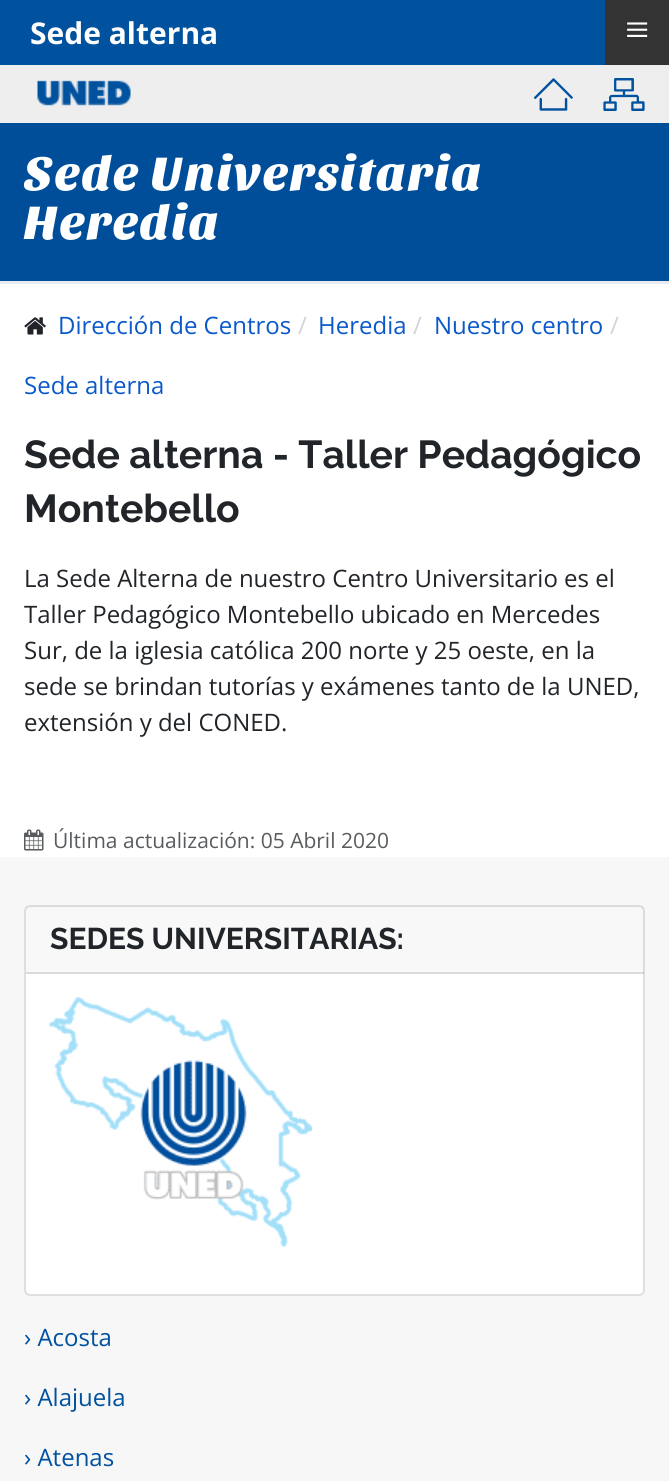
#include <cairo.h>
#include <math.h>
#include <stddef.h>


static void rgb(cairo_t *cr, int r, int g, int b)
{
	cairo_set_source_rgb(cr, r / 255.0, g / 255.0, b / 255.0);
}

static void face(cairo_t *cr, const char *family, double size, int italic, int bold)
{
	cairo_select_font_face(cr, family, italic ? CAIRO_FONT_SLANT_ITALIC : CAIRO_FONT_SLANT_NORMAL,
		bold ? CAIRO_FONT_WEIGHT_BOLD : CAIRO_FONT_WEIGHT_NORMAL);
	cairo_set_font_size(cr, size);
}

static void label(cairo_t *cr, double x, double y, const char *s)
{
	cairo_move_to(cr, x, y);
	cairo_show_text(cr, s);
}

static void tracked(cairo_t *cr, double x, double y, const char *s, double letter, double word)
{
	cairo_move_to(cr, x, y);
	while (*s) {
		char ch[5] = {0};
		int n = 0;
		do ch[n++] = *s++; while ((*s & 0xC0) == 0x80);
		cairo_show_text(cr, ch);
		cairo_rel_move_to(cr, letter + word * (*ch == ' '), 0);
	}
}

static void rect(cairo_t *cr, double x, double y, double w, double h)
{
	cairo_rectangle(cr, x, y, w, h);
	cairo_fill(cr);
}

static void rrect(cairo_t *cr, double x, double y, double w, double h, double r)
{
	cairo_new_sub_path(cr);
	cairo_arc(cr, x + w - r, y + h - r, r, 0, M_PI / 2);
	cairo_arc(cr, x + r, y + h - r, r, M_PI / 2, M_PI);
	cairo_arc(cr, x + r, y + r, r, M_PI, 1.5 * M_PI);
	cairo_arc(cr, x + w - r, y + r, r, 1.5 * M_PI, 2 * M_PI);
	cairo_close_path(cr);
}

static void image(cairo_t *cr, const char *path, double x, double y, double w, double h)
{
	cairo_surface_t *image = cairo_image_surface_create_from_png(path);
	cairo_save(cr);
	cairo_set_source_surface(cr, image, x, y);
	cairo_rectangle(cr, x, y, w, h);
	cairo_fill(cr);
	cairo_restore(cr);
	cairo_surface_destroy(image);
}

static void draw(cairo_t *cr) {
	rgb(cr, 255, 255, 255);
	cairo_paint(cr);
	rgb(cr, 0, 81, 158);
	rect(cr, 0, 0, 605, 65);
	face(cr, "Open Sans", 30, 0, 1);
	rgb(cr, 255, 255, 255);
	label(cr, 30, 44, "Sede alterna");
	rgb(cr, 51, 51, 51);
	rect(cr, 605, 0, 64, 65);
	face(cr, "Liberation Serif", 43, 0, 0);
	rgb(cr, 255, 255, 255);
	label(cr, 625, 44, "≡");
	rgb(cr, 238, 238, 238);
	rect(cr, 0, 65, 669, 58);
	image(cr, "image0.png", 37, 80, 94, 26);
	image(cr, "image1.png", 534, 78, 39, 33);
	image(cr, "image2.png", 603, 78, 42, 33);
	rgb(cr, 0, 78, 153);
	rect(cr, 0, 123, 669, 158);
	rgb(cr, 233, 236, 239);
	rect(cr, 0, 281, 669, 3);
	face(cr, "Sansita ExtraBold", 49, 1, 0);
	rgb(cr, 255, 255, 255);
	tracked(cr, 24, 190, "Sede Universitaria", 2.25, 0);
	tracked(cr, 24, 239, "Heredia", 2.25, 0);
	image(cr, "image3.png", 24, 317, 22, 18);
	face(cr, "Open Sans", 24, 0, 0);
	rgb(cr, 10, 88, 202);
	label(cr, 58, 334, "Dirección de Centros");
	rgb(cr, 206, 212, 218);
	label(cr, 298, 334, "/");
	rgb(cr, 10, 88, 202);
	label(cr, 318, 334, "Heredia");
	rgb(cr, 206, 212, 218);
	label(cr, 413, 334, "/");
	rgb(cr, 10, 88, 202);
	label(cr, 434, 334, "Nuestro centro");
	rgb(cr, 206, 212, 218);
	label(cr, 610, 334, "/");
	rgb(cr, 10, 88, 202);
	label(cr, 24, 394, "Sede alterna");
	face(cr, "Raleway", 39, 0, 1);
	rgb(cr, 33, 37, 41);
	label(cr, 24, 468, "Sede alterna - Taller Pedagógico");
	label(cr, 24, 522, "Montebello");
	face(cr, "Open Sans", 24, 0, 0);
	label(cr, 24, 587, "La Sede Alterna de nuestro Centro Universitario es el");
	label(cr, 24, 623, "Taller Pedagógico Montebello ubicado en Mercedes");
	label(cr, 24, 659, "Sur, de la iglesia católica 200 norte y 25 oeste, en la");
	label(cr, 24, 695, "sede se brindan tutorías y exámenes tanto de la UNED,");
	label(cr, 24, 731, "extensión y del CONED.");
	image(cr, "image4.png", 24, 829, 20, 22);
	face(cr, "Open Sans", 21, 0, 0);
	rgb(cr, 89, 92, 95);
	label(cr, 53, 848, "Última actualización: 05 Abril 2020");
	rgb(cr, 247, 247, 247);
	rect(cr, 0, 857, 669, 624);
	rgb(cr, 255, 255, 255);
	rrect(cr, 25, 906, 619, 389, 5);
	cairo_fill_preserve(cr);
	rgb(cr, 223, 223, 223);
	cairo_stroke(cr);
	cairo_set_source_rgba(cr, 0, 0, 0, 0.03);
	rect(cr, 26, 906, 618, 68);
	cairo_set_source_rgba(cr, 0, 0, 0, 0.12);
	rect(cr, 26, 972, 618, 2);
	face(cr, "Raleway", 30, 0, 1);
	rgb(cr, 33, 37, 41);
	label(cr, 50, 949, "SEDES UNIVERSITARIAS:");
	image(cr, "image5.png", 49, 997, 263, 250);
	face(cr, "Open Sans", 24, 0, 0);
	rgb(cr, 0, 81, 158);
	label(cr, 24, 1346, "› Acosta");
	label(cr, 24, 1406, "› Alajuela");
	label(cr, 24, 1466, "› Atenas");
}

int main(void) {
	cairo_surface_t *surface = cairo_image_surface_create(CAIRO_FORMAT_RGB24, 669, 1481);
	cairo_t *cr = cairo_create(surface);
	cairo_font_options_t *options = cairo_font_options_create();
	cairo_font_options_set_hint_metrics(options, CAIRO_HINT_METRICS_OFF);
	cairo_font_options_set_hint_style(options, CAIRO_HINT_STYLE_NONE);
	cairo_set_font_options(cr, options);
	cairo_set_miter_limit(cr, 4);
	draw(cr);
	cairo_surface_write_to_png(surface, "render.png");
	cairo_font_options_destroy(options);
	cairo_destroy(cr);
	cairo_surface_destroy(surface);
	return 0;
}
